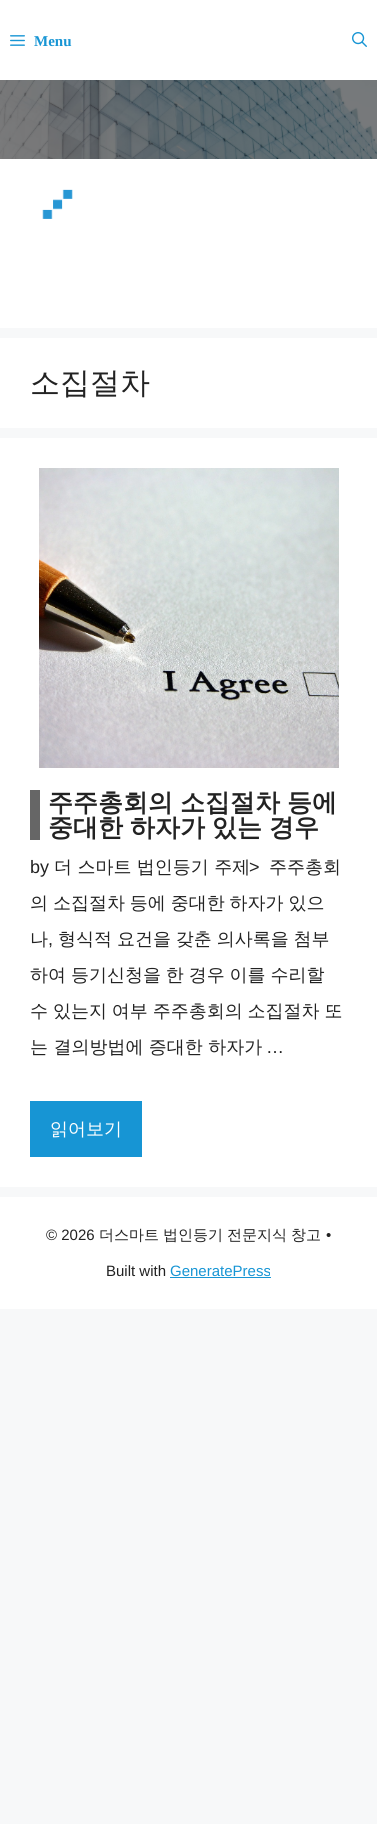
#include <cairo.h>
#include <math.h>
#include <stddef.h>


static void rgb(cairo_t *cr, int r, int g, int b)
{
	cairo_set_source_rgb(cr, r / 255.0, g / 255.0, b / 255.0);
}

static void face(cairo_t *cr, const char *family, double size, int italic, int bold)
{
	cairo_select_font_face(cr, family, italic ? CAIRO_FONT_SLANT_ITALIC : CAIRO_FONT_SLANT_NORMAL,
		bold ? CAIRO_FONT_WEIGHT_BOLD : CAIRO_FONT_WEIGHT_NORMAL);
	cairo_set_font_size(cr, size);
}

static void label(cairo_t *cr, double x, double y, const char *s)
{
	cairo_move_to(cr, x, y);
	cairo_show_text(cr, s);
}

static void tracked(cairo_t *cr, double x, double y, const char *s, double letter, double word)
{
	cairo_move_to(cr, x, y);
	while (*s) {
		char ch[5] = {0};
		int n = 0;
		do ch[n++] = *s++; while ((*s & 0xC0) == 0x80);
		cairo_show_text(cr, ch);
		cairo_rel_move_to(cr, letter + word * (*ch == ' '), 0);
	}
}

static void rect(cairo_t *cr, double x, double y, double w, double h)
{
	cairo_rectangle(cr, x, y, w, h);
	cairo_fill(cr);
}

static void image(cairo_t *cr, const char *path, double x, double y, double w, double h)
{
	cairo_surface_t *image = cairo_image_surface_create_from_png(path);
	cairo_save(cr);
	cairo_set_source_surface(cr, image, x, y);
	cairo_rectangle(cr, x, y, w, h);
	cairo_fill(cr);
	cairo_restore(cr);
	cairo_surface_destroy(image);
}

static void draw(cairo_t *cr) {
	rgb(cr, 247, 248, 249);
	cairo_paint(cr);
	rgb(cr, 255, 255, 255);
	rect(cr, 0, 0, 377, 80);
	image(cr, "image0.png", 10, 35, 15, 11);
	face(cr, "Liberation Serif", 15, 0, 1);
	rgb(cr, 23, 149, 212);
	label(cr, 34, 46, "Menu");
	image(cr, "image1.png", 352, 32, 15, 15);
	rgb(cr, 255, 255, 255);
	rect(cr, 0, 159, 377, 169);
	image(cr, "image2.png", 0, 80, 377, 79);
	image(cr, "image3.png", 42, 189, 31, 30);
	rect(cr, 0, 338, 377, 90);
	face(cr, "WenQuanYi Zen Hei Medium", 30, 0, 0);
	rgb(cr, 34, 34, 34);
	label(cr, 30, 393, "소집절차");
	rgb(cr, 255, 255, 255);
	rect(cr, 0, 438, 377, 749);
	image(cr, "image4.png", 39, 468, 300, 300);
	rgb(cr, 102, 102, 102);
	rect(cr, 30, 790, 10, 50);
	face(cr, "WenQuanYi Zen Hei", 25, 0, 1);
	rgb(cr, 34, 34, 34);
	tracked(cr, 48, 811, "주주총회의 소집절차 등에", 0, -0.5);
	tracked(cr, 48, 836, "중대한 하자가 있는 경우", 0, -0.5);
	face(cr, "Liberation Sans", 18, 0, 0);
	label(cr, 30, 873, "by");
	face(cr, "WenQuanYi Zen Hei Medium", 18, 0, 0);
	label(cr, 54, 873, "더 스마트 법인등기 주제");
	face(cr, "Liberation Sans", 18, 0, 0);
	label(cr, 249, 873, ">");
	face(cr, "WenQuanYi Zen Hei Medium", 18, 0, 0);
	label(cr, 269, 873, "주주총회");
	tracked(cr, 30, 909, "의 소집절차 등에 중대한 하자가 있으", 0, -0.5);
	label(cr, 30, 945, "나");
	face(cr, "Liberation Sans", 18, 0, 0);
	label(cr, 48, 945, ",");
	face(cr, "WenQuanYi Zen Hei Medium", 18, 0, 0);
	tracked(cr, 58, 945, "형식적 요건을 갖춘 의사록을 첨부", 0, -0.5);
	tracked(cr, 30, 981, "하여 등기신청을 한 경우 이를 수리할", 0, -0.5);
	tracked(cr, 30, 1017, "수 있는지 여부 주주총회의 소집절차 또", 0, -0.5);
	label(cr, 30, 1053, "는 결의방법에 증대한 하자가");
	face(cr, "Liberation Sans", 18, 0, 0);
	label(cr, 266, 1053, "…");
	rgb(cr, 23, 149, 212);
	rect(cr, 30, 1101, 112, 56);
	face(cr, "WenQuanYi Zen Hei Medium", 18, 0, 0);
	rgb(cr, 255, 255, 255);
	label(cr, 50, 1135, "읽어보기");
	rect(cr, 0, 1197, 377, 112);
	face(cr, "Liberation Sans", 15, 0, 0);
	rgb(cr, 34, 34, 34);
	label(cr, 46, 1240, "© 2026");
	face(cr, "WenQuanYi Zen Hei Medium", 15, 0, 0);
	label(cr, 99, 1240, "더스마트");
	label(cr, 163, 1240, "법인등기");
	label(cr, 227, 1240, "전문지식");
	label(cr, 291, 1240, "창고");
	face(cr, "Liberation Sans", 15, 0, 0);
	label(cr, 326, 1240, "•");
	label(cr, 106, 1276, "Built with");
	rgb(cr, 23, 149, 212);
	label(cr, 170, 1276, "GeneratePress");
	rect(cr, 170, 1277, 101, 1);
}

int main(void) {
	cairo_surface_t *surface = cairo_image_surface_create(CAIRO_FORMAT_RGB24, 377, 1824);
	cairo_t *cr = cairo_create(surface);
	cairo_font_options_t *options = cairo_font_options_create();
	cairo_font_options_set_hint_metrics(options, CAIRO_HINT_METRICS_OFF);
	cairo_font_options_set_hint_style(options, CAIRO_HINT_STYLE_NONE);
	cairo_set_font_options(cr, options);
	cairo_set_miter_limit(cr, 4);
	draw(cr);
	cairo_surface_write_to_png(surface, "render.png");
	cairo_font_options_destroy(options);
	cairo_destroy(cr);
	cairo_surface_destroy(surface);
	return 0;
}
